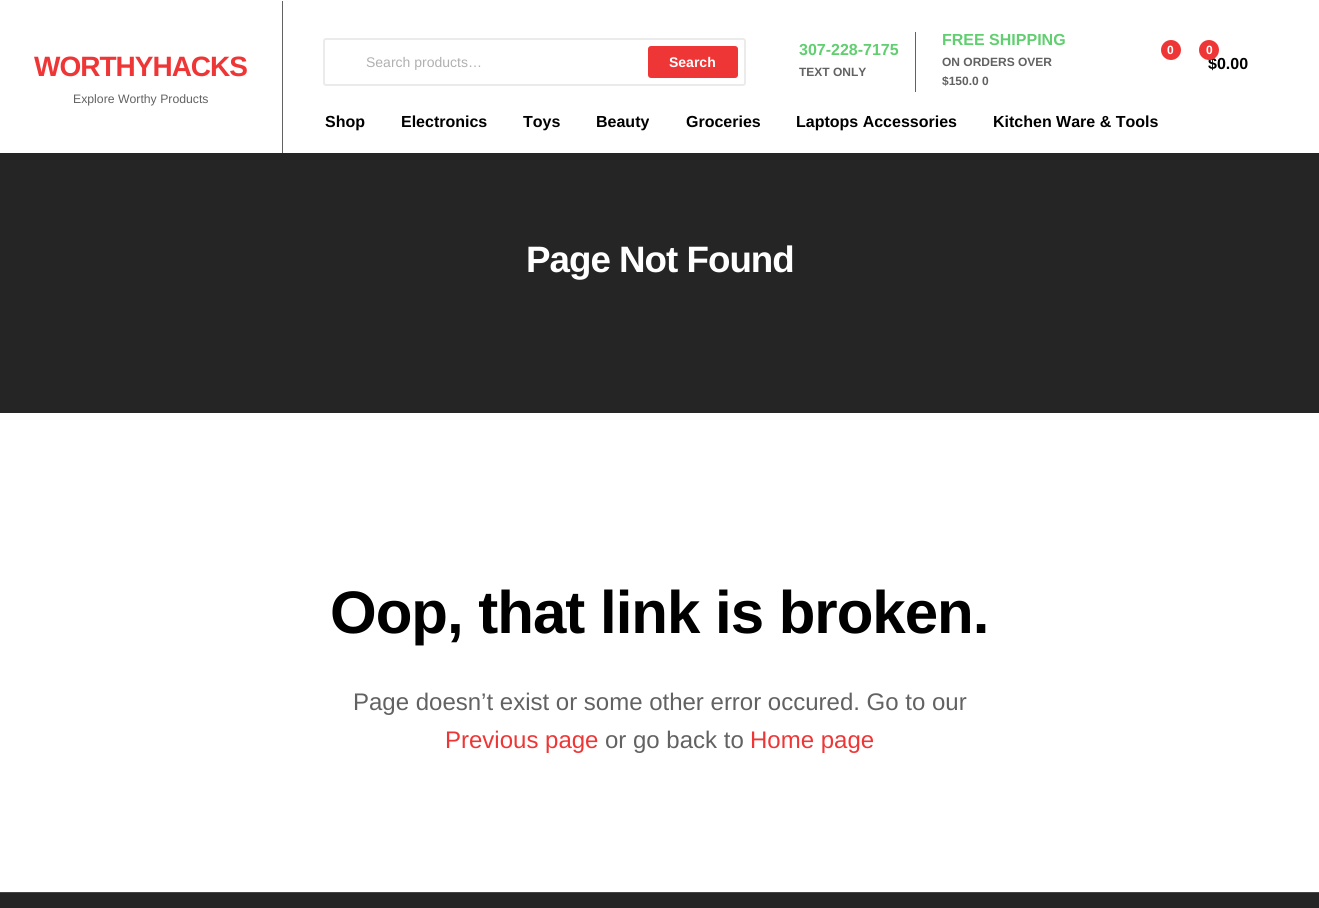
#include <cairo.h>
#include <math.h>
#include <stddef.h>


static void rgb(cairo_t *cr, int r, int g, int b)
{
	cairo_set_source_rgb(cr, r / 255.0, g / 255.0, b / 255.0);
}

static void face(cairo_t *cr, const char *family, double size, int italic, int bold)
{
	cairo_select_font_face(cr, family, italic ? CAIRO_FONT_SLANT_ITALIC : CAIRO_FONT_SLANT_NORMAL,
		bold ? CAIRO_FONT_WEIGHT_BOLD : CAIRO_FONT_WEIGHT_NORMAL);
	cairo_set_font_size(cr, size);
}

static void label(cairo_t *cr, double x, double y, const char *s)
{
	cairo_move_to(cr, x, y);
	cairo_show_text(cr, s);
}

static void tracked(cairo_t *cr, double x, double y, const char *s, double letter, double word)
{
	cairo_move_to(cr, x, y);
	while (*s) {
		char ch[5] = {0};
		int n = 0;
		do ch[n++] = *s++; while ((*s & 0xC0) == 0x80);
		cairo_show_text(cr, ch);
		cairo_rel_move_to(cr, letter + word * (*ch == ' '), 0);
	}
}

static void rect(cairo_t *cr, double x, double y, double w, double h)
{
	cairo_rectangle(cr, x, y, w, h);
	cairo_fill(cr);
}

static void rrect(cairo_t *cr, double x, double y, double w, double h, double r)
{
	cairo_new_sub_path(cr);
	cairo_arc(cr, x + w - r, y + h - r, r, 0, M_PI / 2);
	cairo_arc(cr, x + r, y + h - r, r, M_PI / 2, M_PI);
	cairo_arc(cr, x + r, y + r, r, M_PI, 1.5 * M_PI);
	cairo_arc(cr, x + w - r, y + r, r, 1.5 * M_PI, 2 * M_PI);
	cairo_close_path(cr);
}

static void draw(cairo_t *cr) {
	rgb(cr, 255, 255, 255);
	cairo_paint(cr);
	face(cr, "Liberation Sans", 28, 0, 1);
	rgb(cr, 239, 54, 54);
	tracked(cr, 34, 76, "WORTHYHACKS", -1, 0);
	face(cr, "Liberation Sans", 12.25, 0, 0);
	rgb(cr, 98, 98, 98);
	label(cr, 73, 103, "Explore Worthy Products");
	rect(cr, 282, 1, 1, 152);
	rrect(cr, 324, 39, 421, 46, 2);
	rgb(cr, 235, 235, 235);
	cairo_stroke(cr);
	face(cr, "Liberation Sans", 14, 0, 0);
	rgb(cr, 176, 176, 176);
	label(cr, 366, 67, "Search products…");
	rgb(cr, 239, 54, 54);
	rrect(cr, 649, 47, 88, 30, 2);
	cairo_fill_preserve(cr);
	cairo_stroke(cr);
	face(cr, "Liberation Sans", 14, 0, 1);
	rgb(cr, 255, 255, 255);
	label(cr, 669, 67, "Search");
	face(cr, "Liberation Sans", 16, 0, 1);
	rgb(cr, 97, 206, 112);
	label(cr, 799, 55, "307-228-7175");
	face(cr, "Liberation Sans", 12, 0, 1);
	rgb(cr, 98, 98, 98);
	label(cr, 799, 76, "TEXT ONLY");
	rect(cr, 915, 32, 1, 60);
	face(cr, "Liberation Sans", 16, 0, 1);
	rgb(cr, 97, 206, 112);
	label(cr, 942, 45, "FREE SHIPPING");
	face(cr, "Liberation Sans", 12, 0, 1);
	rgb(cr, 98, 98, 98);
	label(cr, 942, 66, "ON ORDERS OVER");
	label(cr, 942, 85, "$150.0 0");
	rgb(cr, 239, 54, 54);
	cairo_new_path(cr);
	cairo_arc(cr, 1171, 50, 10, 0, 2 * M_PI);
	cairo_fill(cr);
	rgb(cr, 255, 255, 255);
	label(cr, 1167, 54, "0");
	face(cr, "Liberation Sans", 16, 0, 1);
	rgb(cr, 0, 0, 0);
	label(cr, 1208, 69, "$0.00");
	rgb(cr, 239, 54, 54);
	cairo_new_path(cr);
	cairo_arc(cr, 1209, 50, 10, 0, 2 * M_PI);
	cairo_fill(cr);
	face(cr, "Liberation Sans", 12, 0, 1);
	rgb(cr, 255, 255, 255);
	label(cr, 1206, 54, "0");
	face(cr, "Liberation Sans", 16, 0, 1);
	rgb(cr, 0, 0, 0);
	label(cr, 325, 127, "Shop");
	label(cr, 401, 127, "Electronics");
	label(cr, 523, 127, "Toys");
	label(cr, 596, 127, "Beauty");
	label(cr, 686, 127, "Groceries");
	label(cr, 796, 127, "Laptops Accessories");
	label(cr, 993, 127, "Kitchen Ware & Tools");
	rgb(cr, 37, 37, 37);
	rect(cr, 0, 153, 1319, 260);
	face(cr, "Liberation Sans", 36.75, 0, 1);
	rgb(cr, 255, 255, 255);
	tracked(cr, 526, 272, "Page Not Found", -1, 0);
	face(cr, "Liberation Sans", 60, 0, 1);
	rgb(cr, 0, 0, 0);
	tracked(cr, 330, 633, "Oop, that link is broken.", -1, 0);
	face(cr, "Liberation Sans", 24, 0, 0);
	rgb(cr, 98, 98, 98);
	label(cr, 353, 710, "Page doesn’t exist or some other error occured. Go to our");
	rgb(cr, 239, 54, 54);
	label(cr, 445, 748, "Previous page");
	rgb(cr, 98, 98, 98);
	label(cr, 605, 748, "or go back to");
	rgb(cr, 239, 54, 54);
	label(cr, 750, 748, "Home page");
	rgb(cr, 37, 37, 37);
	rect(cr, 0, 893, 1319, 15);
	rgb(cr, 70, 70, 70);
	rect(cr, 0, 892, 1319, 1);
}

int main(void) {
	cairo_surface_t *surface = cairo_image_surface_create(CAIRO_FORMAT_RGB24, 1319, 908);
	cairo_t *cr = cairo_create(surface);
	cairo_font_options_t *options = cairo_font_options_create();
	cairo_font_options_set_hint_metrics(options, CAIRO_HINT_METRICS_OFF);
	cairo_font_options_set_hint_style(options, CAIRO_HINT_STYLE_NONE);
	cairo_set_font_options(cr, options);
	cairo_set_miter_limit(cr, 4);
	draw(cr);
	cairo_surface_write_to_png(surface, "render.png");
	cairo_font_options_destroy(options);
	cairo_destroy(cr);
	cairo_surface_destroy(surface);
	return 0;
}
